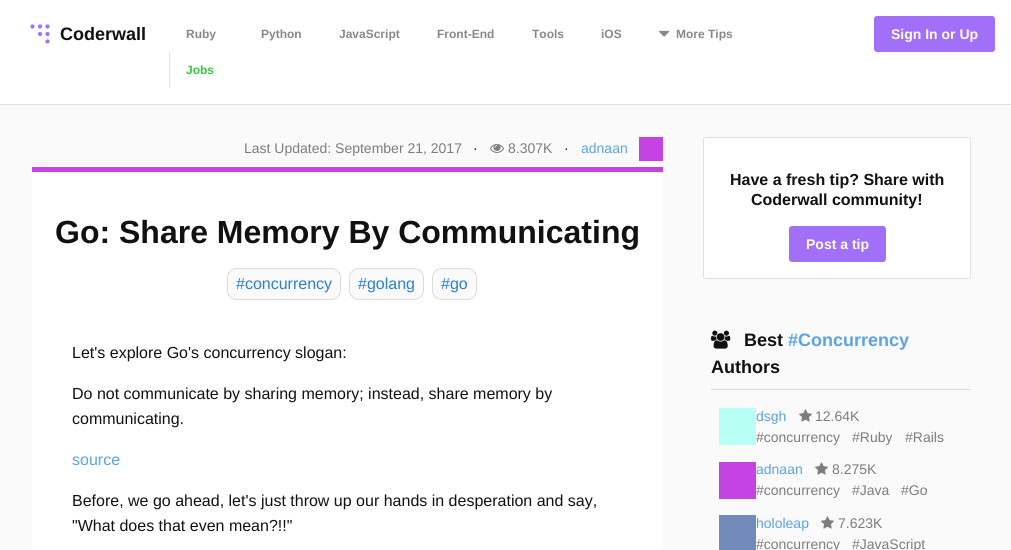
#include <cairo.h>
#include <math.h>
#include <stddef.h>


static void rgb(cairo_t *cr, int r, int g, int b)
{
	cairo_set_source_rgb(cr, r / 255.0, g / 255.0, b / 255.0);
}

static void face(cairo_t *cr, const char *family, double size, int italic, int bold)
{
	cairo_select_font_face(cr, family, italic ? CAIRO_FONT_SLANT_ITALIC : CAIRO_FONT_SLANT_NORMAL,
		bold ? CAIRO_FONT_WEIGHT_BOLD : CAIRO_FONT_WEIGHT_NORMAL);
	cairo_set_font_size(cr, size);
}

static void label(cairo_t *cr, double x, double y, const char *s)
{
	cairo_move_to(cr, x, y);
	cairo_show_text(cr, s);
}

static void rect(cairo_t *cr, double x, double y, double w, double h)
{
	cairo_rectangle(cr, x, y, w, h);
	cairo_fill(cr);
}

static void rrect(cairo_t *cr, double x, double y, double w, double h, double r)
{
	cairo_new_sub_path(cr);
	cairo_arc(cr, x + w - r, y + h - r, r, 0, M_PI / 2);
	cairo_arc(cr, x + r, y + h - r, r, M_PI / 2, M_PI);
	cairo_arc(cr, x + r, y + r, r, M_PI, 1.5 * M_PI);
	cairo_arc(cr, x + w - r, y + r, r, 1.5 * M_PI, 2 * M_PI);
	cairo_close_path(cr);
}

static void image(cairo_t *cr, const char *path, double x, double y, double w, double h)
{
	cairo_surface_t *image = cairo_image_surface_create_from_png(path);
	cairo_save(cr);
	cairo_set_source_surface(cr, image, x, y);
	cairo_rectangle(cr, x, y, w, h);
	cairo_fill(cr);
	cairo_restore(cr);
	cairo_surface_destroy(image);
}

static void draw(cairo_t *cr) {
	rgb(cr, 250, 250, 250);
	cairo_paint(cr);
	rgb(cr, 255, 255, 255);
	rect(cr, 0, 0, 1011, 104);
	rgb(cr, 223, 223, 223);
	rect(cr, 0, 104, 1011, 1);
	image(cr, "image0.png", 30, 24, 20, 20);
	face(cr, "Liberation Sans", 18, 0, 1);
	rgb(cr, 17, 17, 17);
	label(cr, 60, 40, "Coderwall");
	face(cr, "Liberation Sans", 12, 0, 1);
	rgb(cr, 136, 136, 136);
	label(cr, 186, 38, "Ruby");
	label(cr, 261, 38, "Python");
	label(cr, 339, 38, "JavaScript");
	label(cr, 437, 38, "Front-End");
	label(cr, 532, 38, "Tools");
	label(cr, 601, 38, "iOS");
	image(cr, "image1.png", 659, 30, 11, 7);
	label(cr, 676, 38, "More Tips");
	rgb(cr, 223, 223, 223);
	cairo_new_path(cr);
	cairo_move_to(cr, 169, 88);
	cairo_line_to(cr, 169, 52);
	cairo_line_to(cr, 170, 53);
	cairo_line_to(cr, 170, 87);
	cairo_close_path(cr);
	cairo_fill(cr);
	rgb(cr, 46, 204, 64);
	label(cr, 186, 74, "Jobs");
	rgb(cr, 162, 111, 249);
	rrect(cr, 874, 16, 121, 36, 3);
	cairo_fill(cr);
	face(cr, "Liberation Sans", 14, 0, 1);
	rgb(cr, 255, 255, 255);
	label(cr, 891, 39, "Sign In or Up");
	face(cr, "Liberation Sans", 14, 0, 0);
	rgb(cr, 125, 125, 125);
	label(cr, 244, 153, "Last Updated: September 21, 2017");
	rgb(cr, 17, 17, 17);
	label(cr, 473, 153, "·");
	image(cr, "image2.png", 490, 144, 14, 9);
	rgb(cr, 125, 125, 125);
	label(cr, 508, 153, "8.307K");
	rgb(cr, 17, 17, 17);
	label(cr, 564, 153, "·");
	rgb(cr, 90, 163, 232);
	label(cr, 581, 153, "adnaan");
	rgb(cr, 196, 67, 226);
	rect(cr, 639, 137, 24, 24);
	rgb(cr, 255, 255, 255);
	rect(cr, 32, 172, 631, 378);
	rgb(cr, 196, 67, 226);
	rect(cr, 32, 167, 631, 5);
	face(cr, "Liberation Sans", 32, 0, 1);
	rgb(cr, 17, 17, 17);
	label(cr, 55, 243, "Go: Share Memory By Communicating");
	rgb(cr, 250, 250, 250);
	rrect(cr, 227.5, 268.5, 113, 31, 9.5);
	cairo_fill_preserve(cr);
	rgb(cr, 219, 219, 219);
	cairo_set_line_width(cr, 1);
	cairo_stroke(cr);
	face(cr, "Liberation Sans", 16, 0, 0);
	rgb(cr, 39, 128, 211);
	label(cr, 236, 289, "#concurrency");
	rgb(cr, 250, 250, 250);
	rrect(cr, 349.5, 268.5, 74, 31, 9.5);
	cairo_fill_preserve(cr);
	rgb(cr, 219, 219, 219);
	cairo_stroke(cr);
	rgb(cr, 39, 128, 211);
	label(cr, 358, 289, "#golang");
	rgb(cr, 250, 250, 250);
	rrect(cr, 432.5, 268.5, 44, 31, 9.5);
	cairo_fill_preserve(cr);
	rgb(cr, 219, 219, 219);
	cairo_stroke(cr);
	rgb(cr, 39, 128, 211);
	label(cr, 441, 289, "#go");
	rgb(cr, 17, 17, 17);
	label(cr, 72, 358, "Let's explore Go's concurrency slogan:");
	label(cr, 72, 399, "Do not communicate by sharing memory; instead, share memory by");
	label(cr, 72, 424, "communicating.");
	rgb(cr, 90, 163, 232);
	label(cr, 72, 465, "source");
	rgb(cr, 17, 17, 17);
	label(cr, 72, 506, "Before, we go ahead, let's just throw up our hands in desperation and say,");
	label(cr, 72, 531, "\"What does that even mean?!!\"");
	rgb(cr, 255, 255, 255);
	rrect(cr, 703.5, 137.5, 267, 141, 2.5);
	cairo_fill_preserve(cr);
	rgb(cr, 223, 223, 223);
	cairo_stroke(cr);
	face(cr, "Liberation Sans", 16, 0, 1);
	rgb(cr, 17, 17, 17);
	label(cr, 730, 185, "Have a fresh tip? Share with");
	label(cr, 751, 205, "Coderwall community!");
	rgb(cr, 162, 111, 249);
	rrect(cr, 789, 226, 97, 36, 3);
	cairo_fill(cr);
	face(cr, "Liberation Sans", 14, 0, 1);
	rgb(cr, 255, 255, 255);
	label(cr, 806, 249, "Post a tip");
	image(cr, "image3.png", 711, 330, 20, 19);
	face(cr, "Liberation Sans", 18, 0, 1);
	rgb(cr, 17, 17, 17);
	label(cr, 744, 346, "Best");
	rgb(cr, 90, 163, 232);
	label(cr, 788, 346, "#Concurrency");
	rgb(cr, 17, 17, 17);
	label(cr, 711, 373, "Authors");
	rgb(cr, 219, 219, 219);
	rect(cr, 711, 389, 260, 1);
	rgb(cr, 184, 255, 246);
	rect(cr, 719, 408, 37, 37);
	face(cr, "Liberation Sans", 14, 0, 0);
	rgb(cr, 90, 163, 232);
	label(cr, 756, 421, "dsgh");
	image(cr, "image4.png", 799, 409, 13, 13);
	rgb(cr, 125, 125, 125);
	label(cr, 815, 421, "12.64K");
	label(cr, 756, 442, "#concurrency");
	label(cr, 852, 442, "#Ruby");
	label(cr, 905, 442, "#Rails");
	rgb(cr, 196, 67, 226);
	rect(cr, 719, 462, 37, 37);
	rgb(cr, 90, 163, 232);
	label(cr, 756, 474, "adnaan");
	image(cr, "image4.png", 815, 462, 13, 13);
	rgb(cr, 125, 125, 125);
	label(cr, 832, 474, "8.275K");
	label(cr, 756, 495, "#concurrency");
	label(cr, 852, 495, "#Java");
	label(cr, 901, 495, "#Go");
	rgb(cr, 113, 140, 186);
	rect(cr, 719, 515, 37, 35);
	rgb(cr, 90, 163, 232);
	label(cr, 756, 528, "hololeap");
	image(cr, "image4.png", 821, 516, 13, 13);
	rgb(cr, 125, 125, 125);
	label(cr, 838, 528, "7.623K");
	label(cr, 756, 549, "#concurrency");
	label(cr, 852, 549, "#JavaScript");
}

int main(void) {
	cairo_surface_t *surface = cairo_image_surface_create(CAIRO_FORMAT_RGB24, 1011, 550);
	cairo_t *cr = cairo_create(surface);
	cairo_font_options_t *options = cairo_font_options_create();
	cairo_font_options_set_hint_metrics(options, CAIRO_HINT_METRICS_OFF);
	cairo_font_options_set_hint_style(options, CAIRO_HINT_STYLE_NONE);
	cairo_set_font_options(cr, options);
	cairo_set_miter_limit(cr, 4);
	draw(cr);
	cairo_surface_write_to_png(surface, "render.png");
	cairo_font_options_destroy(options);
	cairo_destroy(cr);
	cairo_surface_destroy(surface);
	return 0;
}
